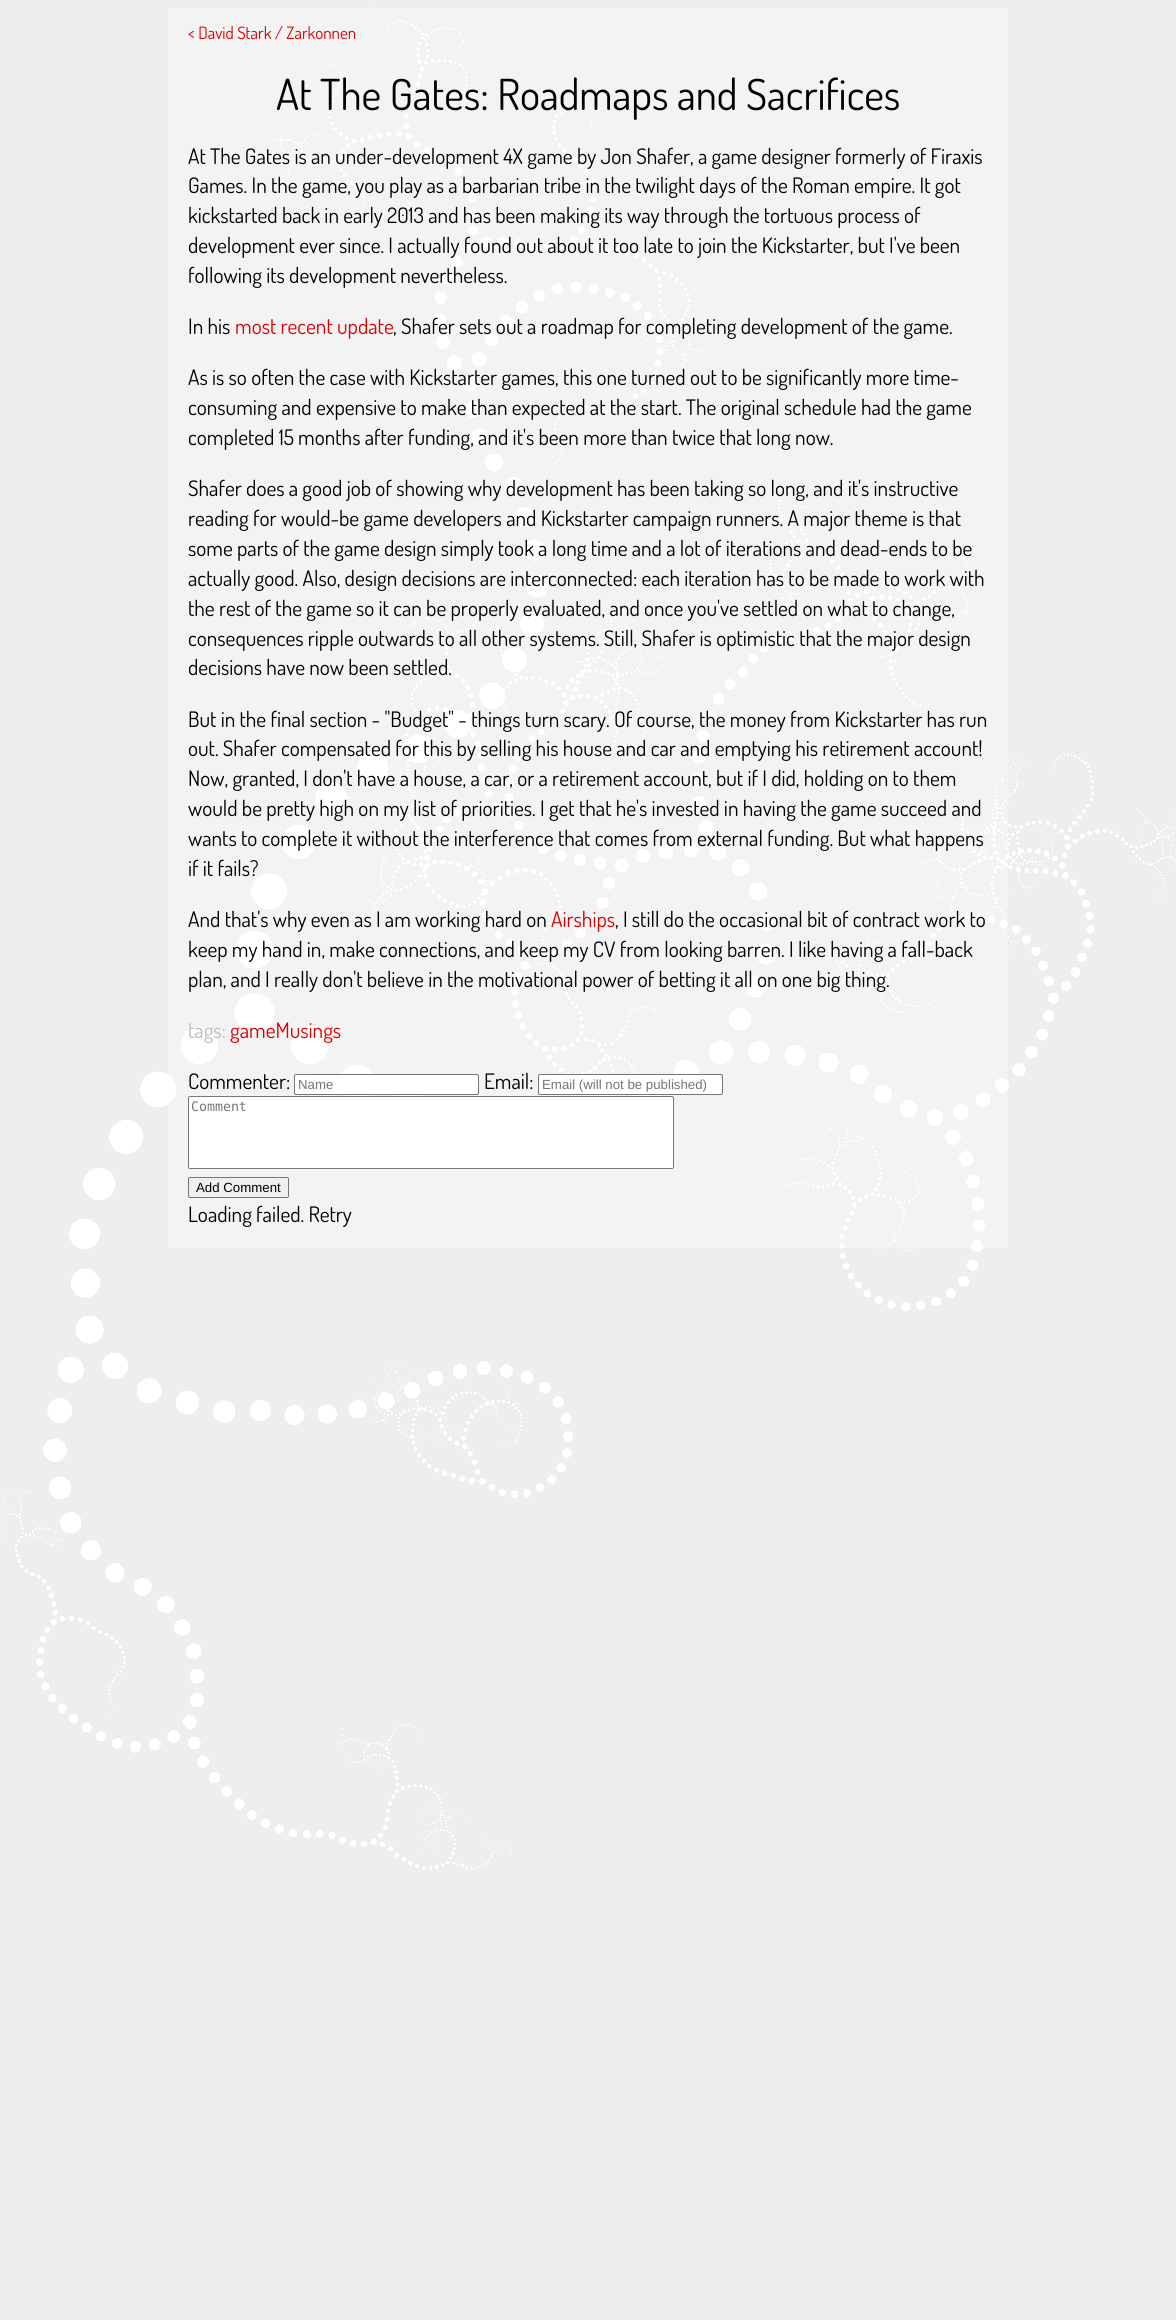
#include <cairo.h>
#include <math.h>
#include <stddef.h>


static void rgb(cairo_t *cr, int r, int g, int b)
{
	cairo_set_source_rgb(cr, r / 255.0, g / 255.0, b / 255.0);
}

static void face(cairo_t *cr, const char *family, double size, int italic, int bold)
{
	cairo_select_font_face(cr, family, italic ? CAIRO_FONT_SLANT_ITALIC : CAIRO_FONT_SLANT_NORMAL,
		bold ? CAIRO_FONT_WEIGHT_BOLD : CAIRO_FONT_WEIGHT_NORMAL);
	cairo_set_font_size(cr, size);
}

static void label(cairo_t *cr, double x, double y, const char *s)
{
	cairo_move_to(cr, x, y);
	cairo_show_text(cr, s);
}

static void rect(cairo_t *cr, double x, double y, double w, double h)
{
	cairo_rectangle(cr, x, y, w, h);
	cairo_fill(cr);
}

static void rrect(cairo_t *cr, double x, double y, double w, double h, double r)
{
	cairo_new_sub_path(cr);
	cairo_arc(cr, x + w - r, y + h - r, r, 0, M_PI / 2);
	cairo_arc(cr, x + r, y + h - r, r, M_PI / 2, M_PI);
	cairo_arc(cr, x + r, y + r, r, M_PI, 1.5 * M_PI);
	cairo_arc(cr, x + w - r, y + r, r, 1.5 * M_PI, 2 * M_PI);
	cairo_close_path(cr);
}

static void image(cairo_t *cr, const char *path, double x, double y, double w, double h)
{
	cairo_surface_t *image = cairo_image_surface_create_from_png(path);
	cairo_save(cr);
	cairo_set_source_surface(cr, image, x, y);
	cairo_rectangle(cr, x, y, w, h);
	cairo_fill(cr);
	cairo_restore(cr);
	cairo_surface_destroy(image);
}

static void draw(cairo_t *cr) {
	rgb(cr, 238, 238, 238);
	cairo_paint(cr);
	image(cr, "image0.png", 0, 6, 1176, 1864);
	cairo_set_source_rgba(cr, 1, 1, 1, 0.3);
	rect(cr, 168, 8, 840, 1240);
	face(cr, "Dosis", 17, 0, 0);
	rgb(cr, 221, 0, 0);
	label(cr, 188, 39, "< David Stark / Zarkonnen");
	face(cr, "Dosis", 21.35, 0, 0);
	rgb(cr, 0, 0, 0);
	label(cr, 188, 164, "At The Gates is an under-development 4X game by Jon Shafer, a game designer formerly of Firaxis");
	label(cr, 188, 193, "Games. In the game, you play as a barbarian tribe in the twilight days of the Roman empire. It got");
	label(cr, 188, 223, "kickstarted back in early 2013 and has been making its way through the tortuous process of");
	label(cr, 188, 253, "development ever since. I actually found out about it too late to join the Kickstarter, but I've been");
	label(cr, 188, 283, "following its development nevertheless.");
	label(cr, 188, 334, "In his");
	rgb(cr, 221, 0, 0);
	label(cr, 235, 334, "most recent update");
	rgb(cr, 0, 0, 0);
	label(cr, 393, 334, ", Shafer sets out a roadmap for completing development of the game.");
	label(cr, 188, 385, "As is so often the case with Kickstarter games, this one turned out to be significantly more time-");
	label(cr, 188, 415, "consuming and expensive to make than expected at the start. The original schedule had the game");
	label(cr, 188, 445, "completed 15 months after funding, and it's been more than twice that long now.");
	label(cr, 188, 496, "Shafer does a good job of showing why development has been taking so long, and it's instructive");
	label(cr, 188, 526, "reading for would-be game developers and Kickstarter campaign runners. A major theme is that");
	label(cr, 188, 556, "some parts of the game design simply took a long time and a lot of iterations and dead-ends to be");
	label(cr, 188, 586, "actually good. Also, design decisions are interconnected: each iteration has to be made to work with");
	label(cr, 188, 616, "the rest of the game so it can be properly evaluated, and once you've settled on what to change,");
	label(cr, 188, 646, "consequences ripple outwards to all other systems. Still, Shafer is optimistic that the major design");
	label(cr, 188, 675, "decisions have now been settled.");
	label(cr, 188, 727, "But in the final section - \"Budget\" - things turn scary. Of course, the money from Kickstarter has run");
	label(cr, 188, 756, "out. Shafer compensated for this by selling his house and car and emptying his retirement account!");
	label(cr, 188, 786, "Now, granted, I don't have a house, a car, or a retirement account, but if I did, holding on to them");
	label(cr, 188, 816, "would be pretty high on my list of priorities. I get that he's invested in having the game succeed and");
	label(cr, 188, 846, "wants to complete it without the interference that comes from external funding. But what happens");
	label(cr, 188, 876, "if it fails?");
	label(cr, 188, 927, "And that's why even as I am working hard on");
	rgb(cr, 221, 0, 0);
	label(cr, 551, 927, "Airships");
	rgb(cr, 0, 0, 0);
	label(cr, 615, 927, ", I still do the occasional bit of contract work to");
	label(cr, 188, 957, "keep my hand in, make connections, and keep my CV from looking barren. I like having a fall-back");
	label(cr, 188, 987, "plan, and I really don't believe in the motivational power of betting it all on one big thing.");
	rgb(cr, 187, 187, 187);
	label(cr, 188, 1038, "tags:");
	rgb(cr, 221, 0, 0);
	label(cr, 230, 1038, "gameMusings");
	rgb(cr, 0, 0, 0);
	label(cr, 188, 1089, "Commenter:");
	rgb(cr, 255, 255, 255);
	rrect(cr, 294.5, 1074.5, 184, 20, 1.5);
	cairo_fill_preserve(cr);
	rgb(cr, 118, 118, 118);
	cairo_set_line_width(cr, 1);
	cairo_stroke(cr);
	face(cr, "Liberation Sans", 13.25, 0, 0);
	rgb(cr, 117, 117, 117);
	label(cr, 298, 1089, "Name");
	face(cr, "Dosis", 21.35, 0, 0);
	rgb(cr, 0, 0, 0);
	label(cr, 484, 1089, "Email:");
	rgb(cr, 255, 255, 255);
	rrect(cr, 538.5, 1074.5, 184, 20, 1.5);
	cairo_fill_preserve(cr);
	rgb(cr, 118, 118, 118);
	cairo_stroke(cr);
	face(cr, "Liberation Sans", 13.25, 0, 0);
	rgb(cr, 117, 117, 117);
	label(cr, 542, 1089, "Email (will not be published)");
	rgb(cr, 255, 255, 255);
	rrect(cr, 188.5, 1096.5, 485, 72, 1.5);
	cairo_fill_preserve(cr);
	rgb(cr, 118, 118, 118);
	cairo_stroke(cr);
	face(cr, "DejaVu Sans Mono", 13.25, 0, 0);
	rgb(cr, 117, 117, 117);
	label(cr, 191, 1111, "Comment");
	rgb(cr, 239, 239, 239);
	rrect(cr, 188.5, 1177.5, 100, 20, 1.5);
	cairo_fill_preserve(cr);
	rgb(cr, 118, 118, 118);
	cairo_stroke(cr);
	face(cr, "Liberation Sans", 13.25, 0, 0);
	rgb(cr, 0, 0, 0);
	label(cr, 196, 1192, "Add Comment");
	face(cr, "Dosis", 42.7, 0, 0);
	label(cr, 276, 110, "At The Gates: Roadmaps and Sacrifices");
	face(cr, "Dosis", 21.35, 0, 0);
	label(cr, 188, 1222, "Loading failed. Retry");
}

int main(void) {
	cairo_surface_t *surface = cairo_image_surface_create(CAIRO_FORMAT_RGB24, 1176, 2320);
	cairo_t *cr = cairo_create(surface);
	cairo_font_options_t *options = cairo_font_options_create();
	cairo_font_options_set_hint_metrics(options, CAIRO_HINT_METRICS_OFF);
	cairo_font_options_set_hint_style(options, CAIRO_HINT_STYLE_NONE);
	cairo_set_font_options(cr, options);
	cairo_set_miter_limit(cr, 4);
	draw(cr);
	cairo_surface_write_to_png(surface, "render.png");
	cairo_font_options_destroy(options);
	cairo_destroy(cr);
	cairo_surface_destroy(surface);
	return 0;
}
